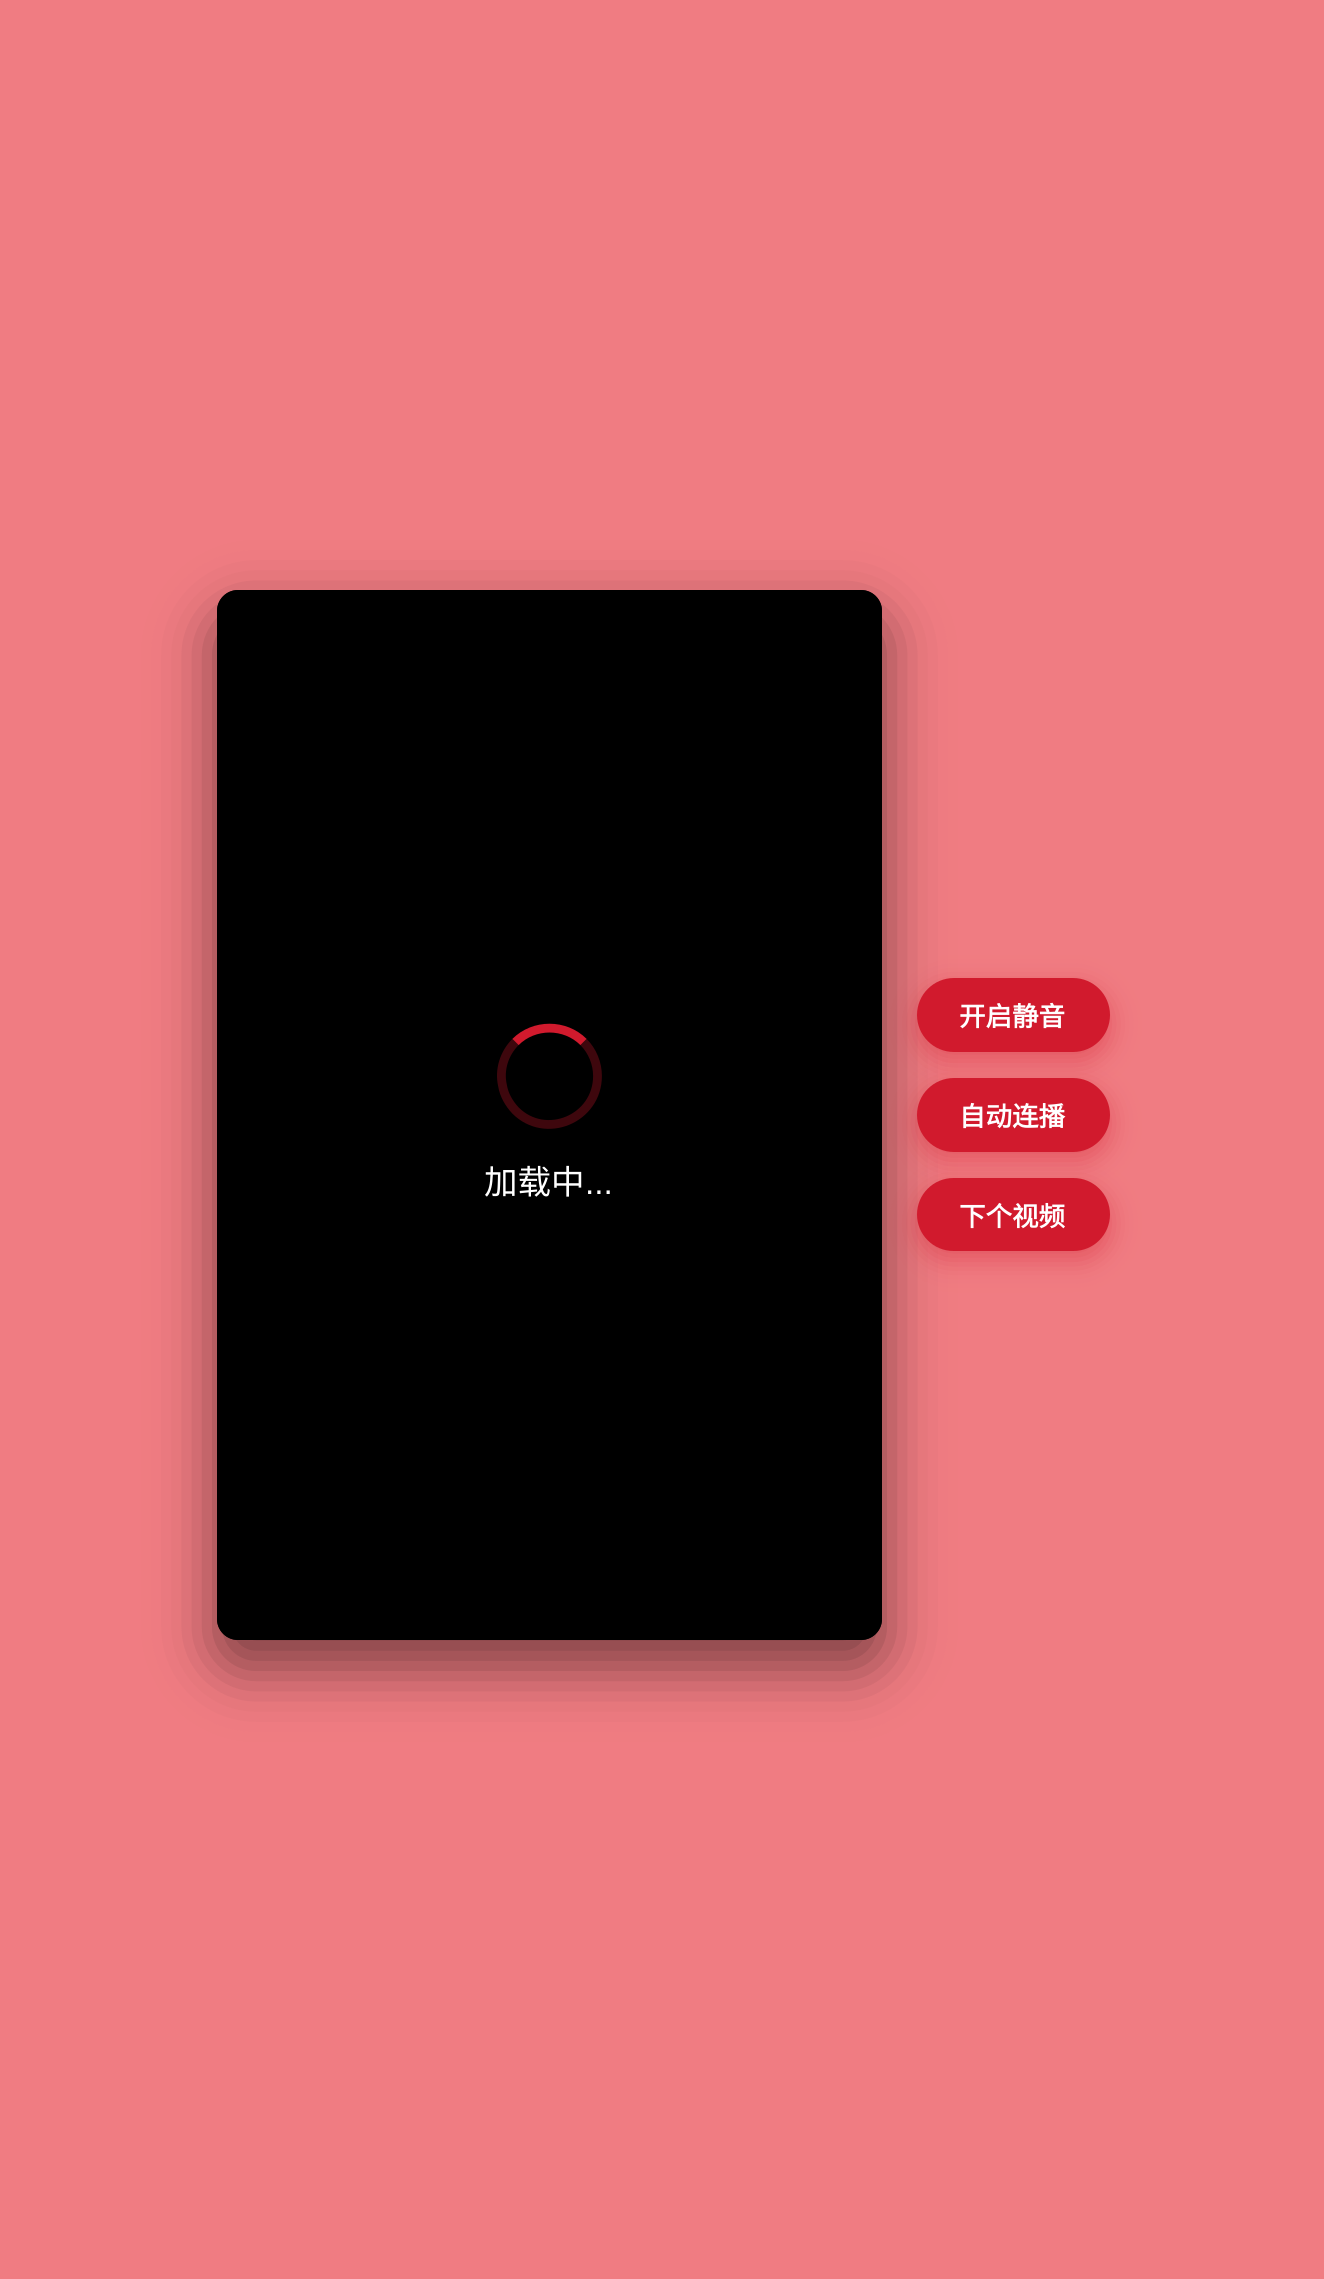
#include <cairo.h>
#include <math.h>
#include <stddef.h>


static void rgb(cairo_t *cr, int r, int g, int b)
{
	cairo_set_source_rgb(cr, r / 255.0, g / 255.0, b / 255.0);
}

static void face(cairo_t *cr, const char *family, double size, int italic, int bold)
{
	cairo_select_font_face(cr, family, italic ? CAIRO_FONT_SLANT_ITALIC : CAIRO_FONT_SLANT_NORMAL,
		bold ? CAIRO_FONT_WEIGHT_BOLD : CAIRO_FONT_WEIGHT_NORMAL);
	cairo_set_font_size(cr, size);
}

static void label(cairo_t *cr, double x, double y, const char *s)
{
	cairo_move_to(cr, x, y);
	cairo_show_text(cr, s);
}

static void rrect(cairo_t *cr, double x, double y, double w, double h, double r)
{
	cairo_new_sub_path(cr);
	cairo_arc(cr, x + w - r, y + h - r, r, 0, M_PI / 2);
	cairo_arc(cr, x + r, y + h - r, r, M_PI / 2, M_PI);
	cairo_arc(cr, x + r, y + r, r, M_PI, 1.5 * M_PI);
	cairo_arc(cr, x + w - r, y + r, r, 1.5 * M_PI, 2 * M_PI);
	cairo_close_path(cr);
}

static void soft_shadow(cairo_t *cr, double x, double y, double w, double h, double r, double blur, double alpha)
{
	cairo_push_group_with_content(cr, CAIRO_CONTENT_ALPHA);
	cairo_set_operator(cr, CAIRO_OPERATOR_SOURCE);
	for (int i = 15; i >= -15 && fmin(w, h) + blur * i / 3 > 0; i -= 2) {
		double e = blur * i / 6;
		cairo_set_source_rgba(cr, 0, 0, 0, alpha * erfc((i - 1) / 8.5) / 2);
		rrect(cr, x - e, y - e, w + 2 * e, h + 2 * e, fmax(0, fmin(r + e + blur * .6, fmin(w, h) / 2 + e)));
		cairo_fill(cr);
	}
	cairo_pattern_t *soft = cairo_pop_group(cr);
	cairo_mask(cr, soft);
	cairo_pattern_destroy(soft);
}

static void draw(cairo_t *cr) {
	rgb(cr, 240, 124, 130);
	cairo_paint(cr);
	rgb(cr, 0, 0, 0);
	soft_shadow(cr, 217, 616, 665, 1050, 21, 30.5, 0.5);
	rgb(cr, 0, 0, 0);
	rrect(cr, 217, 590, 665, 1050, 21);
	cairo_fill(cr);
	cairo_set_source_rgba(cr, 0, 0, 0, 0.85);
	rrect(cr, 217, 590, 665, 1050, 21);
	cairo_fill(cr);
	cairo_new_path(cr);
	cairo_move_to(cr, 515.5, 1042);
	cairo_curve_to(cr, 534, 1023.5, 565, 1023.5, 583.5, 1042);
	rgb(cr, 209, 26, 45);
	cairo_set_line_width(cr, 8.8);
	cairo_stroke(cr);
	cairo_new_path(cr);
	cairo_move_to(cr, 583.5, 1042);
	cairo_curve_to(cr, 592.5, 1051, 597.5, 1063.5, 597.5, 1076);
	cairo_curve_to(cr, 597.5, 1119, 545.5, 1140.5, 515.5, 1110.5);
	cairo_curve_to(cr, 509, 1103.5, 504, 1095, 502.5, 1085.5);
	cairo_curve_to(cr, 499, 1070, 504, 1053.5, 515.5, 1042);
	cairo_set_source_rgba(cr, 0.82, 0.102, 0.176, 0.3);
	cairo_stroke(cr);
	face(cr, "Noto Sans CJK SC", 33.5, 0, 0);
	rgb(cr, 255, 255, 255);
	label(cr, 484, 1194, "加载中");
	face(cr, "Liberation Sans", 33.5, 0, 0);
	label(cr, 585, 1194, "...");
	rgb(cr, 209, 26, 45);
	soft_shadow(cr, 917, 987, 193, 74, 37, 13, 0.4);
	rgb(cr, 209, 26, 45);
	rrect(cr, 917, 978, 193, 74, 37);
	cairo_fill(cr);
	face(cr, "Noto Sans CJK SC", 26.5, 0, 1);
	rgb(cr, 255, 255, 255);
	label(cr, 959, 1026, "开启静音");
	rgb(cr, 209, 26, 45);
	soft_shadow(cr, 917, 1087, 193, 73, 36.5, 13, 0.4);
	rgb(cr, 209, 26, 45);
	rrect(cr, 917, 1078, 193, 74, 37);
	cairo_fill(cr);
	rgb(cr, 255, 255, 255);
	label(cr, 959, 1126, "自动连播");
	rgb(cr, 209, 26, 45);
	soft_shadow(cr, 917, 1187, 193, 73, 36.5, 13, 0.4);
	rgb(cr, 209, 26, 45);
	rrect(cr, 917, 1178, 193, 73, 36.5);
	cairo_fill(cr);
	rgb(cr, 255, 255, 255);
	label(cr, 959, 1226, "下个视频");
}

int main(void) {
	cairo_surface_t *surface = cairo_image_surface_create(CAIRO_FORMAT_RGB24, 1324, 2279);
	cairo_t *cr = cairo_create(surface);
	cairo_font_options_t *options = cairo_font_options_create();
	cairo_font_options_set_hint_metrics(options, CAIRO_HINT_METRICS_OFF);
	cairo_font_options_set_hint_style(options, CAIRO_HINT_STYLE_NONE);
	cairo_set_font_options(cr, options);
	cairo_set_miter_limit(cr, 4);
	draw(cr);
	cairo_surface_write_to_png(surface, "render.png");
	cairo_font_options_destroy(options);
	cairo_destroy(cr);
	cairo_surface_destroy(surface);
	return 0;
}
